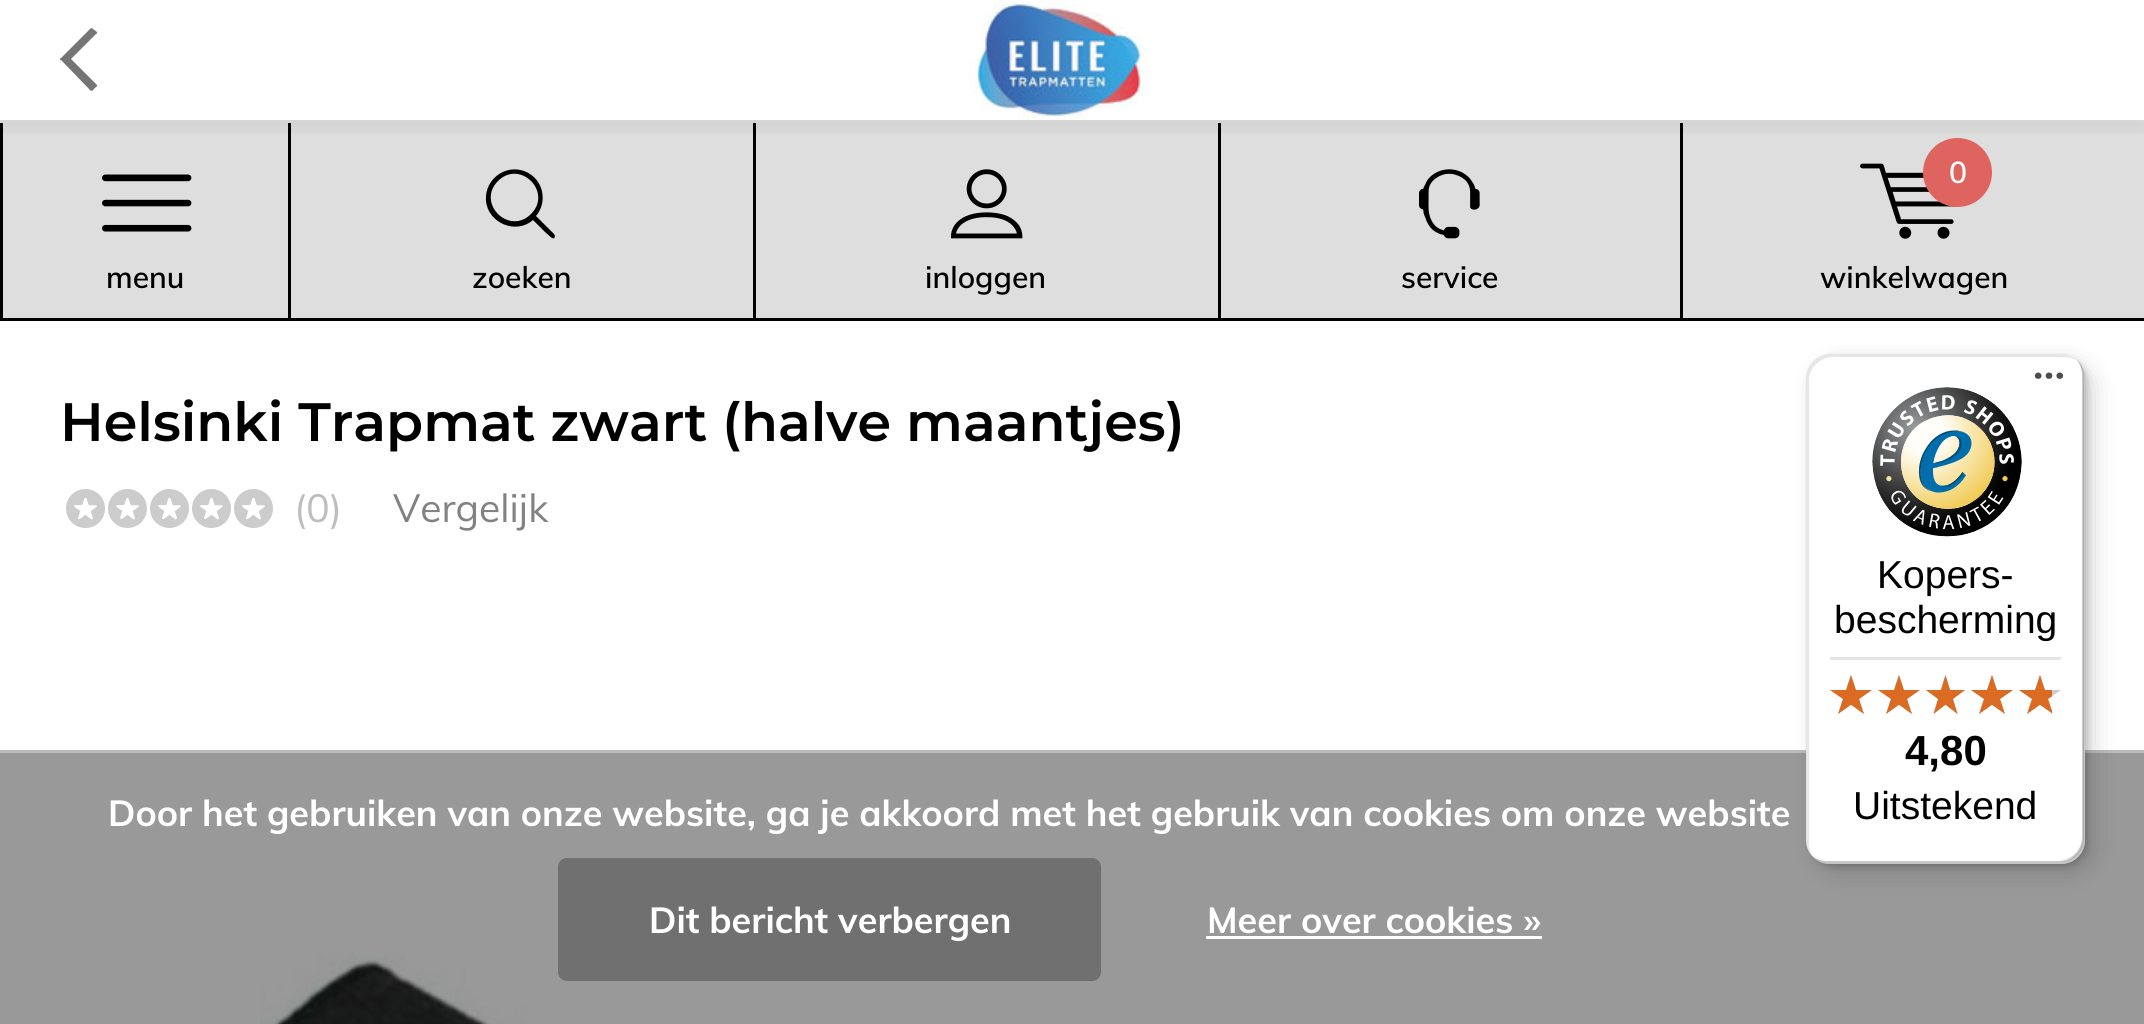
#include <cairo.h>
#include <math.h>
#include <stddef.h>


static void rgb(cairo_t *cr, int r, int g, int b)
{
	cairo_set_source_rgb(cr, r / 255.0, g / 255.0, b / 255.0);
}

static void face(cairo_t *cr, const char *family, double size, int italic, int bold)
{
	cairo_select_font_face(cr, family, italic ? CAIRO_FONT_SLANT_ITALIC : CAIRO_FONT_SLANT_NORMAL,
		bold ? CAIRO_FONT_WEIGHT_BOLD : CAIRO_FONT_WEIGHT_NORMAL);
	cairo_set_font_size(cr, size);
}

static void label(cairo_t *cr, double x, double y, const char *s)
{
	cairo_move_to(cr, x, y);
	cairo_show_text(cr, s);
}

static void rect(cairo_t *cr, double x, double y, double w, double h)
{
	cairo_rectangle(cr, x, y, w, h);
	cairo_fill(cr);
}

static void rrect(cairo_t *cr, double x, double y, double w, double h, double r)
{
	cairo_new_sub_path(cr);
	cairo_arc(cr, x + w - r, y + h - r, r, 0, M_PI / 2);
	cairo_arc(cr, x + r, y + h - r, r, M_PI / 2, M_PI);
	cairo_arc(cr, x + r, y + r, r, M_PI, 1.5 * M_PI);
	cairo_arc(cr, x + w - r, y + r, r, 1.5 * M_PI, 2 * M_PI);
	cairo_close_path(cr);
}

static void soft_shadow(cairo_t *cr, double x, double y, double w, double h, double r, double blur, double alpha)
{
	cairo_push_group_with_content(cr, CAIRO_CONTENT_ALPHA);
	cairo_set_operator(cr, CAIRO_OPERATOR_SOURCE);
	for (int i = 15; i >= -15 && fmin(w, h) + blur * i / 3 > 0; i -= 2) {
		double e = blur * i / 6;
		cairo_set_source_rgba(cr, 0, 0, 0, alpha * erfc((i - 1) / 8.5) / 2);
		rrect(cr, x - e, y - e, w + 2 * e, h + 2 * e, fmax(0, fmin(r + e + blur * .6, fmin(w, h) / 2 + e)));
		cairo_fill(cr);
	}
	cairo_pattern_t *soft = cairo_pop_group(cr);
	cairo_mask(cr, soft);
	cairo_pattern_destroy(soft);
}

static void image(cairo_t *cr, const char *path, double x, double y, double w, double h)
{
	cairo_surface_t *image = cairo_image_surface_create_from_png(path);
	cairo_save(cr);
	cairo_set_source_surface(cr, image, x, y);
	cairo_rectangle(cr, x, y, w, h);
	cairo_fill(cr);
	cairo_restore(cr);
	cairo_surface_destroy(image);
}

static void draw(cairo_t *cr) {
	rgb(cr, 255, 255, 255);
	cairo_paint(cr);
	rgb(cr, 153, 153, 153);
	rect(cr, 0, 753, 2144, 271);
	rgb(cr, 224, 224, 224);
	rect(cr, 0, 120, 2144, 3);
	rgb(cr, 222, 222, 222);
	rect(cr, 3, 123, 285, 195);
	rgb(cr, 0, 0, 0);
	rect(cr, 0, 318, 2144, 3);
	rect(cr, 0, 123, 3, 198);
	rgb(cr, 222, 222, 222);
	rect(cr, 291, 123, 462, 195);
	rgb(cr, 0, 0, 0);
	rect(cr, 288, 123, 3, 198);
	rgb(cr, 222, 222, 222);
	rect(cr, 756, 123, 462, 195);
	rgb(cr, 0, 0, 0);
	rect(cr, 753, 123, 3, 198);
	rgb(cr, 222, 222, 222);
	rect(cr, 1221, 123, 459, 195);
	rgb(cr, 0, 0, 0);
	rect(cr, 1218, 123, 3, 198);
	rgb(cr, 222, 222, 222);
	rect(cr, 1683, 123, 461, 195);
	rgb(cr, 0, 0, 0);
	rect(cr, 1680, 123, 3, 198);
	image(cr, "image4.png", 1860, 163, 97, 76);
	rgb(cr, 223, 100, 96);
	cairo_arc(cr, 1957.5, 172.5, 34.5, 0, 2 * M_PI);
	cairo_fill(cr);
	cairo_save(cr);
	cairo_rectangle(cr, 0, 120, 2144, 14);
	cairo_clip(cr);
	rgb(cr, 0, 0, 0);
	soft_shadow(cr, 0, 12, 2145, 120, 0, 6, 0.05);
	cairo_restore(cr);
	rgb(cr, 117, 117, 117);
	cairo_new_path(cr);
	cairo_move_to(cr, 61, 58);
	cairo_line_to(cr, 90, 29);
	cairo_curve_to(cr, 90, 28, 93, 28, 93, 29);
	cairo_line_to(cr, 97, 32);
	cairo_curve_to(cr, 97, 33, 97, 34, 96, 34);
	cairo_line_to(cr, 71, 59);
	cairo_line_to(cr, 97, 85);
	cairo_curve_to(cr, 97, 86, 97, 87, 96, 87);
	cairo_line_to(cr, 93, 90);
	cairo_curve_to(cr, 93, 91, 90, 91, 90, 90);
	cairo_line_to(cr, 61, 60);
	cairo_curve_to(cr, 59, 60, 60, 58, 61, 58);
	cairo_close_path(cr);
	cairo_fill(cr);
	image(cr, "image0.png", 969, 0, 180, 120);
	image(cr, "image1.png", 102, 174, 90, 58);
	face(cr, "Muli SemiBold", 30, 0, 0);
	rgb(cr, 0, 0, 0);
	label(cr, 106, 288, "menu");
	cairo_new_path(cr);
	cairo_move_to(cr, 554, 234);
	cairo_line_to(cr, 536, 216);
	cairo_curve_to(cr, 547, 203, 544, 183, 530, 174);
	cairo_curve_to(cr, 510, 161, 484, 177, 486, 201);
	cairo_curve_to(cr, 488, 223, 516, 235, 533, 220);
	cairo_line_to(cr, 545, 232);
	cairo_curve_to(cr, 549, 235, 554, 242, 555, 236);
	cairo_close_path(cr);
	cairo_move_to(cr, 531, 214);
	cairo_curve_to(cr, 509, 236, 476, 203, 498, 181);
	cairo_curve_to(cr, 520, 159, 553, 192, 531, 214);
	cairo_close_path(cr);
	cairo_fill(cr);
	label(cr, 472, 288, "zoeken");
	image(cr, "image2.png", 951, 169, 72, 70);
	label(cr, 925, 288, "inloggen");
	image(cr, "image3.png", 1419, 169, 61, 70);
	label(cr, 1401, 288, "service");
	rgb(cr, 255, 255, 255);
	label(cr, 1949, 183, "0");
	rgb(cr, 0, 0, 0);
	label(cr, 1820, 288, "winkelwagen");
	face(cr, "Montserrat SemiBold", 54, 0, 0);
	label(cr, 60, 441, "Helsinki Trapmat zwart (halve maantjes)");
	image(cr, "image5.png", 66, 489, 39, 39);
	image(cr, "image5.png", 108, 489, 39, 39);
	image(cr, "image5.png", 150, 489, 39, 39);
	image(cr, "image5.png", 192, 489, 39, 39);
	image(cr, "image5.png", 234, 489, 39, 39);
	face(cr, "Muli", 39, 0, 0);
	rgb(cr, 189, 189, 189);
	label(cr, 294, 522, "(0)");
	rgb(cr, 130, 130, 130);
	label(cr, 393, 522, "Vergelijk");
	image(cr, "image6.png", 260, 952, 266, 72);
	rgb(cr, 187, 187, 187);
	rect(cr, 0, 750, 2144, 3);
	face(cr, "Muli", 36, 0, 1);
	rgb(cr, 255, 255, 255);
	label(cr, 108, 826, "Door het gebruiken van onze website, ga je akkoord met het gebruik van cookies om onze website");
	rgb(cr, 112, 112, 112);
	rrect(cr, 558, 858, 543, 123, 9);
	cairo_fill(cr);
	rgb(cr, 255, 255, 255);
	label(cr, 649, 933, "Dit bericht verbergen");
	label(cr, 1207, 933, "Meer over cookies »");
	rect(cr, 1206, 936, 336, 3);
	rgb(cr, 0, 0, 0);
	soft_shadow(cr, 1815, 363, 279, 510, 24, 12, 0.15);
	soft_shadow(cr, 1809, 357, 279, 510, 24, 3, 0.15);
	rgb(cr, 255, 255, 255);
	rrect(cr, 1806, 354, 279, 510, 24);
	cairo_fill(cr);
	cairo_set_source_rgba(cr, 0, 0, 0, 0.1);
	cairo_new_path(cr);
	cairo_move_to(cr, 1833, 357);
	cairo_line_to(cr, 2064, 357);
	cairo_curve_to(cr, 2070, 357, 2076, 359, 2080, 363);
	cairo_curve_to(cr, 2075, 358, 2069, 354, 2061, 354);
	cairo_line_to(cr, 1830, 354);
	cairo_curve_to(cr, 1817, 354, 1806, 365, 1806, 378);
	cairo_line_to(cr, 1806, 840);
	cairo_curve_to(cr, 1806, 848, 1810, 854, 1815, 859);
	cairo_curve_to(cr, 1811, 855, 1809, 849, 1809, 843);
	cairo_line_to(cr, 1809, 381);
	cairo_curve_to(cr, 1809, 368, 1820, 357, 1833, 357);
	cairo_close_path(cr);
	cairo_fill(cr);
	cairo_set_source_rgba(cr, 0, 0, 0, 0.2);
	cairo_new_path(cr);
	cairo_move_to(cr, 1811, 855);
	cairo_curve_to(cr, 1816, 860, 1822, 864, 1830, 864);
	cairo_line_to(cr, 2061, 864);
	cairo_curve_to(cr, 2074, 864, 2085, 853, 2085, 840);
	cairo_line_to(cr, 2085, 378);
	cairo_curve_to(cr, 2085, 370, 2081, 364, 2076, 359);
	cairo_curve_to(cr, 2080, 363, 2082, 369, 2082, 375);
	cairo_line_to(cr, 2082, 837);
	cairo_curve_to(cr, 2082, 850, 2071, 861, 2058, 861);
	cairo_line_to(cr, 1827, 861);
	cairo_curve_to(cr, 1821, 861, 1815, 859, 1811, 855);
	cairo_close_path(cr);
	cairo_fill(cr);
	cairo_set_source_rgba(cr, 0.196, 0.196, 0.196, 0.2);
	cairo_new_path(cr);
	cairo_move_to(cr, 1811, 855);
	cairo_curve_to(cr, 1816, 861, 1822, 864, 1830, 864);
	cairo_line_to(cr, 2061, 864);
	cairo_curve_to(cr, 2074, 864, 2085, 853, 2085, 840);
	cairo_line_to(cr, 2085, 378);
	cairo_curve_to(cr, 2085, 370, 2082, 364, 2076, 359);
	cairo_curve_to(cr, 2080, 364, 2083, 370, 2083, 376);
	cairo_line_to(cr, 2083, 838);
	cairo_curve_to(cr, 2083, 851, 2072, 862, 2059, 862);
	cairo_line_to(cr, 1828, 862);
	cairo_curve_to(cr, 1822, 862, 1816, 859, 1811, 855);
	cairo_close_path(cr);
	cairo_fill(cr);
	cairo_set_source_rgba(cr, 1, 1, 1, 0.3);
	cairo_new_path(cr);
	cairo_move_to(cr, 1813, 857);
	cairo_curve_to(cr, 1817, 861, 1823, 864, 1830, 864);
	cairo_line_to(cr, 2061, 864);
	cairo_curve_to(cr, 2074, 864, 2085, 853, 2085, 840);
	cairo_line_to(cr, 2085, 378);
	cairo_curve_to(cr, 2085, 373, 2084, 369, 2081, 365);
	cairo_curve_to(cr, 2083, 369, 2084, 372, 2084, 376);
	cairo_line_to(cr, 2084, 838);
	cairo_curve_to(cr, 2084, 852, 2073, 862, 2060, 862);
	cairo_line_to(cr, 1828, 862);
	cairo_curve_to(cr, 1822, 862, 1817, 860, 1813, 857);
	cairo_close_path(cr);
	cairo_fill(cr);
	image(cr, "image7.png", 2034, 372, 30, 7);
	image(cr, "image8.png", 1872, 387, 150, 150);
	face(cr, "Liberation Sans", 39, 0, 0);
	rgb(cr, 0, 0, 0);
	label(cr, 1877, 588, "Kopers-");
	label(cr, 1834, 633, "bescherming");
	rgb(cr, 229, 229, 229);
	rect(cr, 1830, 657, 231, 3);
	image(cr, "image9.png", 1830, 675, 42, 39);
	image(cr, "image9.png", 1878, 675, 42, 39);
	image(cr, "image10.png", 1926, 675, 39, 39);
	image(cr, "image9.png", 1971, 675, 42, 39);
	image(cr, "image9.png", 2019, 675, 42, 39);
	image(cr, "image11.png", 1830, 675, 42, 39);
	image(cr, "image11.png", 1878, 675, 42, 39);
	image(cr, "image12.png", 1926, 675, 39, 39);
	image(cr, "image11.png", 1971, 675, 42, 39);
	image(cr, "image13.png", 2019, 675, 33, 39);
	face(cr, "Liberation Sans", 42, 0, 1);
	rgb(cr, 0, 0, 0);
	label(cr, 1905, 765, "4,80");
	face(cr, "Liberation Sans", 39, 0, 0);
	label(cr, 1853, 819, "Uitstekend");
}

int main(void) {
	cairo_surface_t *surface = cairo_image_surface_create(CAIRO_FORMAT_RGB24, 2144, 1024);
	cairo_t *cr = cairo_create(surface);
	cairo_font_options_t *options = cairo_font_options_create();
	cairo_font_options_set_hint_metrics(options, CAIRO_HINT_METRICS_OFF);
	cairo_font_options_set_hint_style(options, CAIRO_HINT_STYLE_NONE);
	cairo_set_font_options(cr, options);
	cairo_set_miter_limit(cr, 4);
	draw(cr);
	cairo_surface_write_to_png(surface, "render.png");
	cairo_font_options_destroy(options);
	cairo_destroy(cr);
	cairo_surface_destroy(surface);
	return 0;
}
